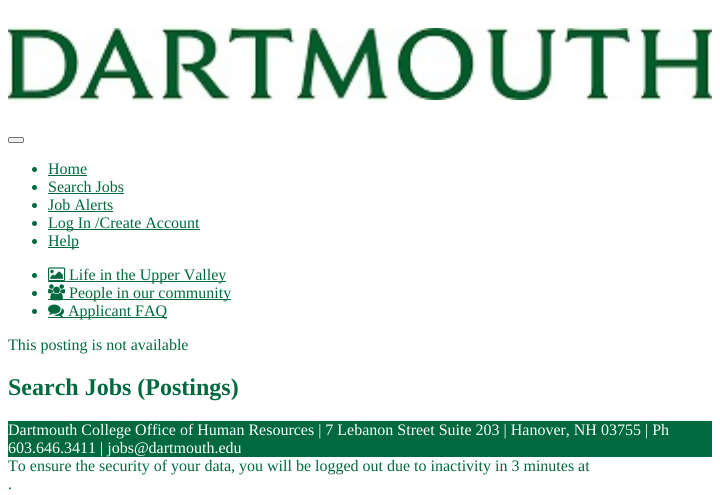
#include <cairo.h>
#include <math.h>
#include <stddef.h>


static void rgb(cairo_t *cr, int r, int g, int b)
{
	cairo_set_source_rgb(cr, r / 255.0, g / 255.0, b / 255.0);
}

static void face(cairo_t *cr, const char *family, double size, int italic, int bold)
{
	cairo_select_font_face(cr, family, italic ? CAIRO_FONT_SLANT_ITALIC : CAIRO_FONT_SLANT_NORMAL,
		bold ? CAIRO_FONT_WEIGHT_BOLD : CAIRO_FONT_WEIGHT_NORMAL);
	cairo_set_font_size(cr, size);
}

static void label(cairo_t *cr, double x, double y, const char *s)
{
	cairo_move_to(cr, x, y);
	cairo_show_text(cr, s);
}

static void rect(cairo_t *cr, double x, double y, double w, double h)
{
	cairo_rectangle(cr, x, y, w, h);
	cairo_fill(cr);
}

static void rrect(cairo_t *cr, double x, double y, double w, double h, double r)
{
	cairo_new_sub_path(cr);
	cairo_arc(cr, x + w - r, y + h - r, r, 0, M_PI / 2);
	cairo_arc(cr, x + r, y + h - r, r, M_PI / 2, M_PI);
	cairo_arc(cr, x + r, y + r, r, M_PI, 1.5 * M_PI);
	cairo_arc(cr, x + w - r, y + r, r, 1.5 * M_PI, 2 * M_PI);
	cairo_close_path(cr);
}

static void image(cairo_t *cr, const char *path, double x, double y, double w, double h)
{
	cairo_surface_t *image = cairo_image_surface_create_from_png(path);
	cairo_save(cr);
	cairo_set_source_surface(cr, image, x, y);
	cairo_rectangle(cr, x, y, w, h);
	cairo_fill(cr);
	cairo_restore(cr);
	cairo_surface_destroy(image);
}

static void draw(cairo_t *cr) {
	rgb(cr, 255, 255, 255);
	cairo_paint(cr);
	image(cr, "image0.png", 8, 28, 704, 72);
	rgb(cr, 239, 239, 239);
	rrect(cr, 8.5, 137.5, 15, 5, 1.5);
	cairo_fill_preserve(cr);
	rgb(cr, 118, 118, 118);
	cairo_set_line_width(cr, 1);
	cairo_stroke(cr);
	rgb(cr, 0, 105, 62);
	cairo_arc(cr, 34.5, 169.5, 2.5, 0, 2 * M_PI);
	cairo_fill(cr);
	face(cr, "Liberation Serif", 16, 0, 0);
	label(cr, 48, 174, "Home");
	rect(cr, 48, 175, 39, 1);
	cairo_new_path(cr);
	cairo_arc(cr, 34.5, 187.5, 2.5, 0, 2 * M_PI);
	cairo_fill(cr);
	label(cr, 48, 192, "Search Jobs");
	rect(cr, 48, 193, 76, 1);
	cairo_new_path(cr);
	cairo_arc(cr, 34.5, 205.5, 2.5, 0, 2 * M_PI);
	cairo_fill(cr);
	label(cr, 48, 210, "Job Alerts");
	rect(cr, 48, 211, 65, 1);
	cairo_new_path(cr);
	cairo_arc(cr, 34.5, 223.5, 2.5, 0, 2 * M_PI);
	cairo_fill(cr);
	rect(cr, 48, 229, 152, 1);
	label(cr, 48, 228, "Log In /Create Account");
	cairo_new_path(cr);
	cairo_arc(cr, 34.5, 241.5, 2.5, 0, 2 * M_PI);
	cairo_fill(cr);
	rect(cr, 48, 247, 31, 1);
	label(cr, 48, 246, "Help");
	cairo_new_path(cr);
	cairo_arc(cr, 34.5, 275.5, 2.5, 0, 2 * M_PI);
	cairo_fill(cr);
	rect(cr, 48, 281, 178, 1);
	image(cr, "image1.png", 48, 267, 18, 14);
	label(cr, 69, 280, "Life in the Upper Valley");
	cairo_new_path(cr);
	cairo_arc(cr, 34.5, 293.5, 2.5, 0, 2 * M_PI);
	cairo_fill(cr);
	rect(cr, 48, 299, 17, 1);
	image(cr, "image2.png", 48, 284, 18, 17);
	rect(cr, 65, 299, 166, 1);
	label(cr, 69, 298, "People in our community");
	cairo_new_path(cr);
	cairo_arc(cr, 34.5, 311.5, 2.5, 0, 2 * M_PI);
	cairo_fill(cr);
	rect(cr, 48, 317, 119, 1);
	image(cr, "image3.png", 48, 304, 16, 13);
	label(cr, 68, 316, "Applicant FAQ");
	label(cr, 8, 350, "This posting is not available");
	face(cr, "Liberation Serif", 24, 0, 1);
	label(cr, 8, 395, "Search Jobs (Postings)");
	rect(cr, 8, 421, 704, 36);
	face(cr, "Liberation Serif", 16, 0, 0);
	rgb(cr, 255, 255, 255);
	label(cr, 8, 435, "Dartmouth College Office of Human Resources | 7 Lebanon Street Suite 203 | Hanover, NH 03755 | Ph");
	label(cr, 8, 453, "603.646.3411 | jobs@dartmouth.edu");
	rgb(cr, 0, 105, 62);
	label(cr, 8, 471, "To ensure the security of your data, you will be logged out due to inactivity in 3 minutes at");
	label(cr, 8, 489, ".");
}

int main(void) {
	cairo_surface_t *surface = cairo_image_surface_create(CAIRO_FORMAT_RGB24, 720, 495);
	cairo_t *cr = cairo_create(surface);
	cairo_font_options_t *options = cairo_font_options_create();
	cairo_font_options_set_hint_metrics(options, CAIRO_HINT_METRICS_OFF);
	cairo_font_options_set_hint_style(options, CAIRO_HINT_STYLE_NONE);
	cairo_set_font_options(cr, options);
	cairo_set_miter_limit(cr, 4);
	draw(cr);
	cairo_surface_write_to_png(surface, "render.png");
	cairo_font_options_destroy(options);
	cairo_destroy(cr);
	cairo_surface_destroy(surface);
	return 0;
}
